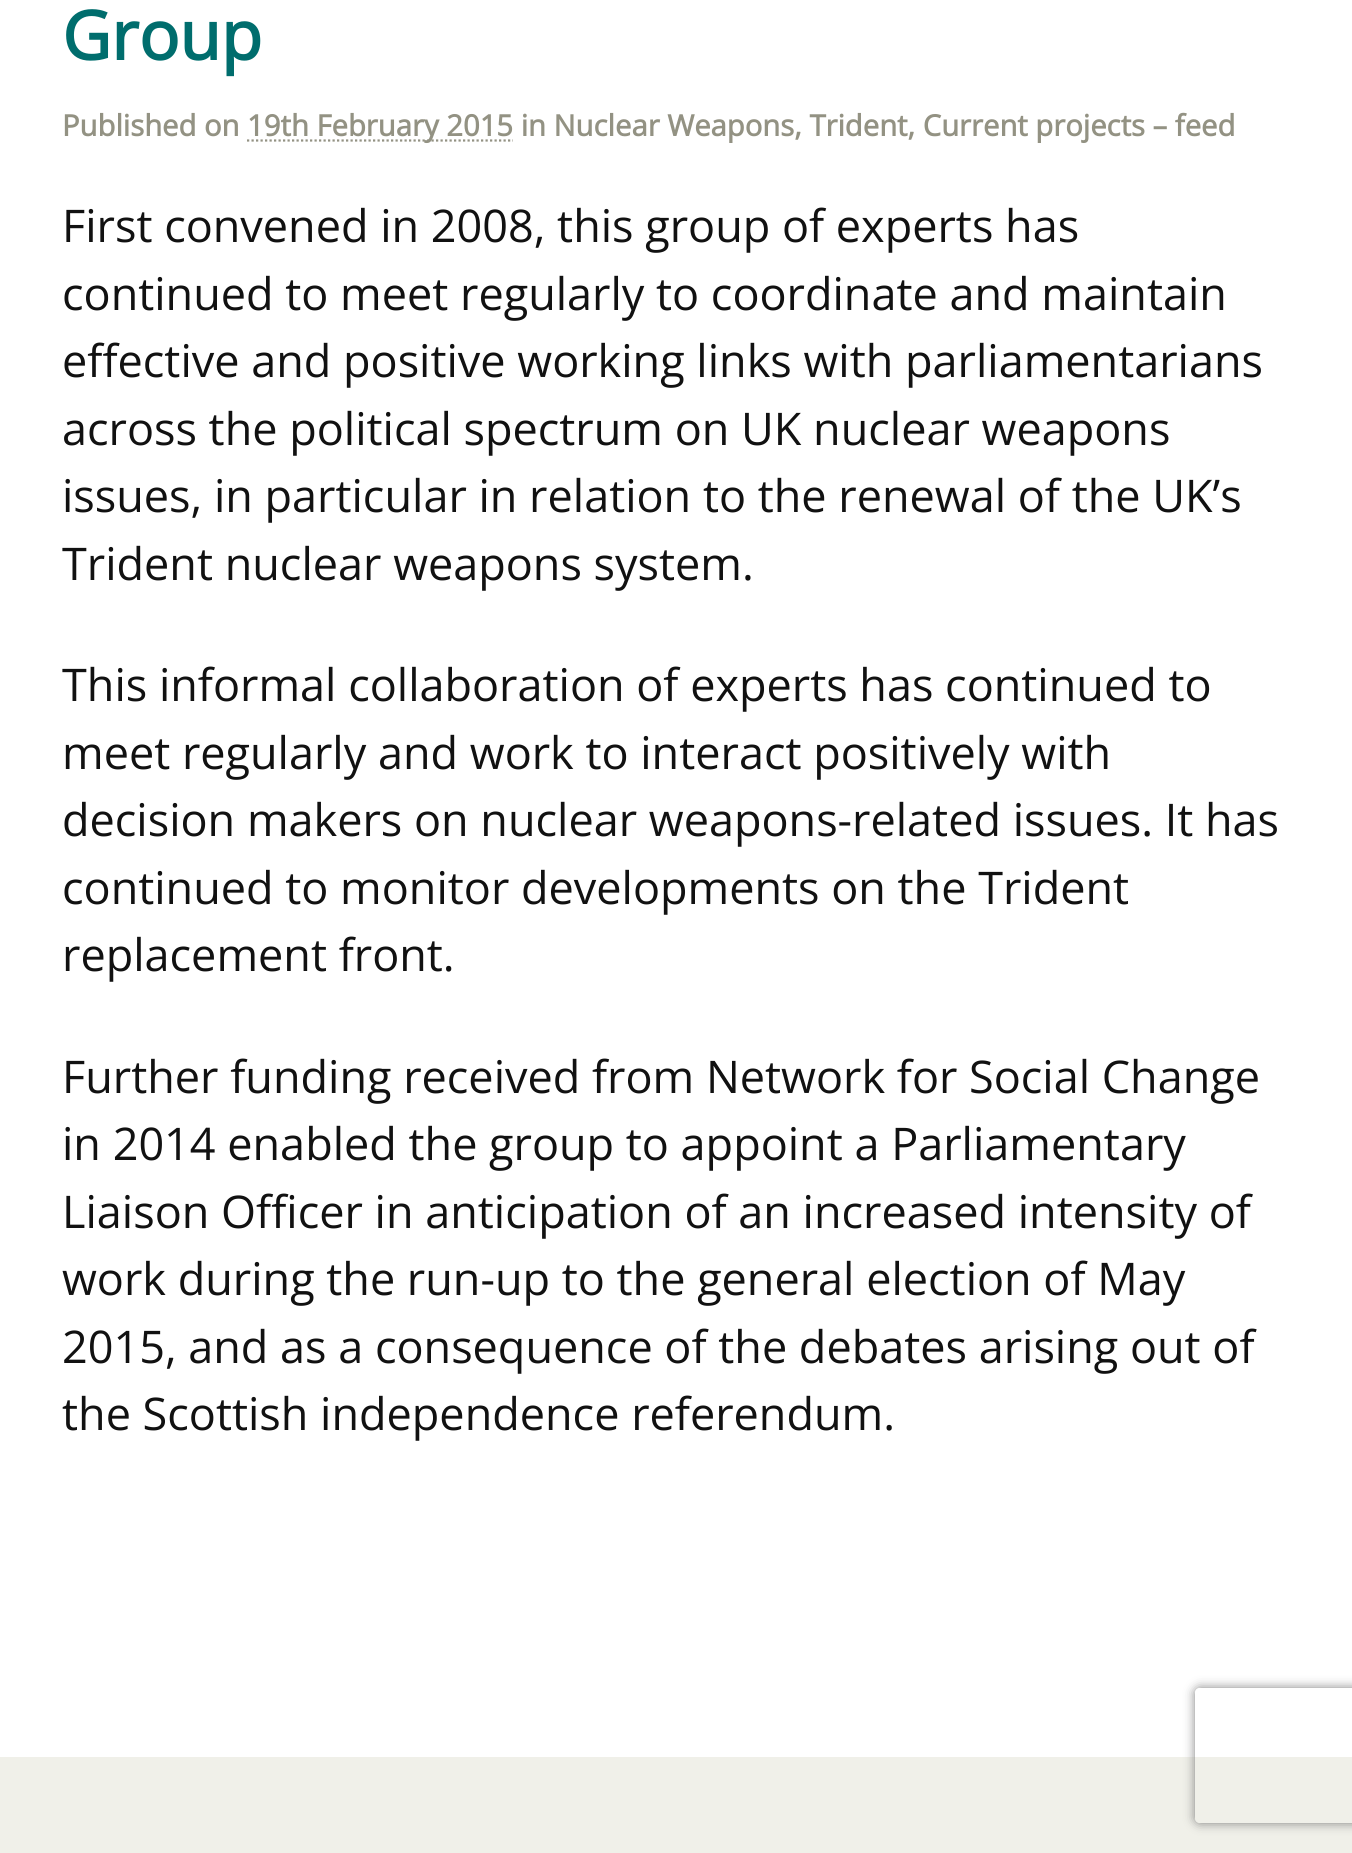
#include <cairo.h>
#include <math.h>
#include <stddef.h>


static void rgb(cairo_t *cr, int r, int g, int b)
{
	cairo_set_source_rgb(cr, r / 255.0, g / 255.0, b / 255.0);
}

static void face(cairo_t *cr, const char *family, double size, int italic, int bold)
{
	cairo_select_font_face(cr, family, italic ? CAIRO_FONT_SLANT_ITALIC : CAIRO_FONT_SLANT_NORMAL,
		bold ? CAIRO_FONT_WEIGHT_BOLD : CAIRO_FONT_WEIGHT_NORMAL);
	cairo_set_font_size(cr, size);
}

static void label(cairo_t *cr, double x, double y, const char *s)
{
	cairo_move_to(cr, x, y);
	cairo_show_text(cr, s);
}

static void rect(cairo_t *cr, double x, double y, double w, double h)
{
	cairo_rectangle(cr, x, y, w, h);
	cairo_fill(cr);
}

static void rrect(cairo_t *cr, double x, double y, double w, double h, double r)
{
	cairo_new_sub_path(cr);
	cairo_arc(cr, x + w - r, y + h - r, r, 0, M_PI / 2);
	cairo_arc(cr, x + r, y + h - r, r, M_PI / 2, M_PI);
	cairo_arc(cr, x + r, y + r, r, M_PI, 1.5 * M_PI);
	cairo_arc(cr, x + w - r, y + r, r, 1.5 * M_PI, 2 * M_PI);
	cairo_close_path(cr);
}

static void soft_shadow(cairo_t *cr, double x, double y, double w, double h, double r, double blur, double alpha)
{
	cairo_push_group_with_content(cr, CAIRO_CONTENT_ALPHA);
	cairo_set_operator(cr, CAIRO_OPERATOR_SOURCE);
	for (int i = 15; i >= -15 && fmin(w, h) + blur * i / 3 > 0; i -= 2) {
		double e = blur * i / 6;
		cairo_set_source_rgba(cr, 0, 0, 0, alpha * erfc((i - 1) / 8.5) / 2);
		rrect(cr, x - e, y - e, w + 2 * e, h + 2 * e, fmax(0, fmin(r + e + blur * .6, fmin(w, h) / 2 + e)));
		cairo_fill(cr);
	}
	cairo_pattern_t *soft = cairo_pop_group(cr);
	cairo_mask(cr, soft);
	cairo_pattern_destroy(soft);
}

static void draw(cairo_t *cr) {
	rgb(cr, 255, 255, 255);
	cairo_paint(cr);
	face(cr, "Open Sans", 67.5, 0, 1);
	rgb(cr, 0, 109, 109);
	label(cr, 62, 60, "Group");
	face(cr, "Open Sans", 29.25, 0, 1);
	rgb(cr, 147, 146, 131);
	label(cr, 62, 136, "Published on");
	cairo_new_path(cr);
	cairo_move_to(cr, 247, 140.5);
	cairo_line_to(cr, 513, 140.5);
	cairo_set_line_width(cr, 2.2);
	cairo_set_dash(cr, (double[]){2.25, 2.25}, 2, 0);
	cairo_stroke(cr);
	label(cr, 247, 136, "19th February 2015 in Nuclear Weapons, Trident, Current projects – feed");
	face(cr, "Open Sans", 45, 0, 0);
	rgb(cr, 17, 17, 17);
	label(cr, 62, 242, "First convened in 2008, this group of experts has");
	label(cr, 62, 310, "continued to meet regularly to coordinate and maintain");
	label(cr, 62, 377, "effective and positive working links with parliamentarians");
	label(cr, 62, 445, "across the political spectrum on UK nuclear weapons");
	label(cr, 62, 512, "issues, in particular in relation to the renewal of the UK’s");
	label(cr, 62, 580, "Trident nuclear weapons system.");
	label(cr, 62, 701, "This informal collaboration of experts has continued to");
	label(cr, 62, 769, "meet regularly and work to interact positively with");
	label(cr, 62, 836, "decision makers on nuclear weapons-related issues. It has");
	label(cr, 62, 904, "continued to monitor developments on the Trident");
	label(cr, 62, 971, "replacement front.");
	label(cr, 62, 1093, "Further funding received from Network for Social Change");
	label(cr, 62, 1160, "in 2014 enabled the group to appoint a Parliamentary");
	label(cr, 62, 1228, "Liaison Officer in anticipation of an increased intensity of");
	label(cr, 62, 1295, "work during the run-up to the general election of May");
	label(cr, 62, 1363, "2015, and as a consequence of the debates arising out of");
	label(cr, 62, 1430, "the Scottish independence referendum.");
	rgb(cr, 240, 240, 233);
	rect(cr, 0, 1757, 1352, 96);
	cairo_save(cr);
	cairo_set_fill_rule(cr, CAIRO_FILL_RULE_EVEN_ODD);
	cairo_new_path(cr);
	cairo_move_to(cr, 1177, 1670);
	cairo_line_to(cr, 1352, 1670);
	cairo_line_to(cr, 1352, 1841);
	cairo_line_to(cr, 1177, 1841);
	cairo_close_path(cr);
	cairo_move_to(cr, 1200, 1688);
	cairo_line_to(cr, 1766, 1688);
	cairo_curve_to(cr, 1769, 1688, 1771, 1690, 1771, 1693);
	cairo_line_to(cr, 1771, 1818);
	cairo_curve_to(cr, 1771, 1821, 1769, 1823, 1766, 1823);
	cairo_line_to(cr, 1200, 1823);
	cairo_curve_to(cr, 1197, 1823, 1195, 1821, 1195, 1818);
	cairo_line_to(cr, 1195, 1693);
	cairo_curve_to(cr, 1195, 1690, 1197, 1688, 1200, 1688);
	cairo_close_path(cr);
	cairo_clip(cr);
	rgb(cr, 128, 128, 128);
	soft_shadow(cr, 1195, 1688, 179, 135, 5, 5.5, 1);
	cairo_restore(cr);
}

int main(void) {
	cairo_surface_t *surface = cairo_image_surface_create(CAIRO_FORMAT_RGB24, 1352, 1853);
	cairo_t *cr = cairo_create(surface);
	cairo_font_options_t *options = cairo_font_options_create();
	cairo_font_options_set_hint_metrics(options, CAIRO_HINT_METRICS_OFF);
	cairo_font_options_set_hint_style(options, CAIRO_HINT_STYLE_NONE);
	cairo_set_font_options(cr, options);
	cairo_set_miter_limit(cr, 4);
	draw(cr);
	cairo_surface_write_to_png(surface, "render.png");
	cairo_font_options_destroy(options);
	cairo_destroy(cr);
	cairo_surface_destroy(surface);
	return 0;
}
